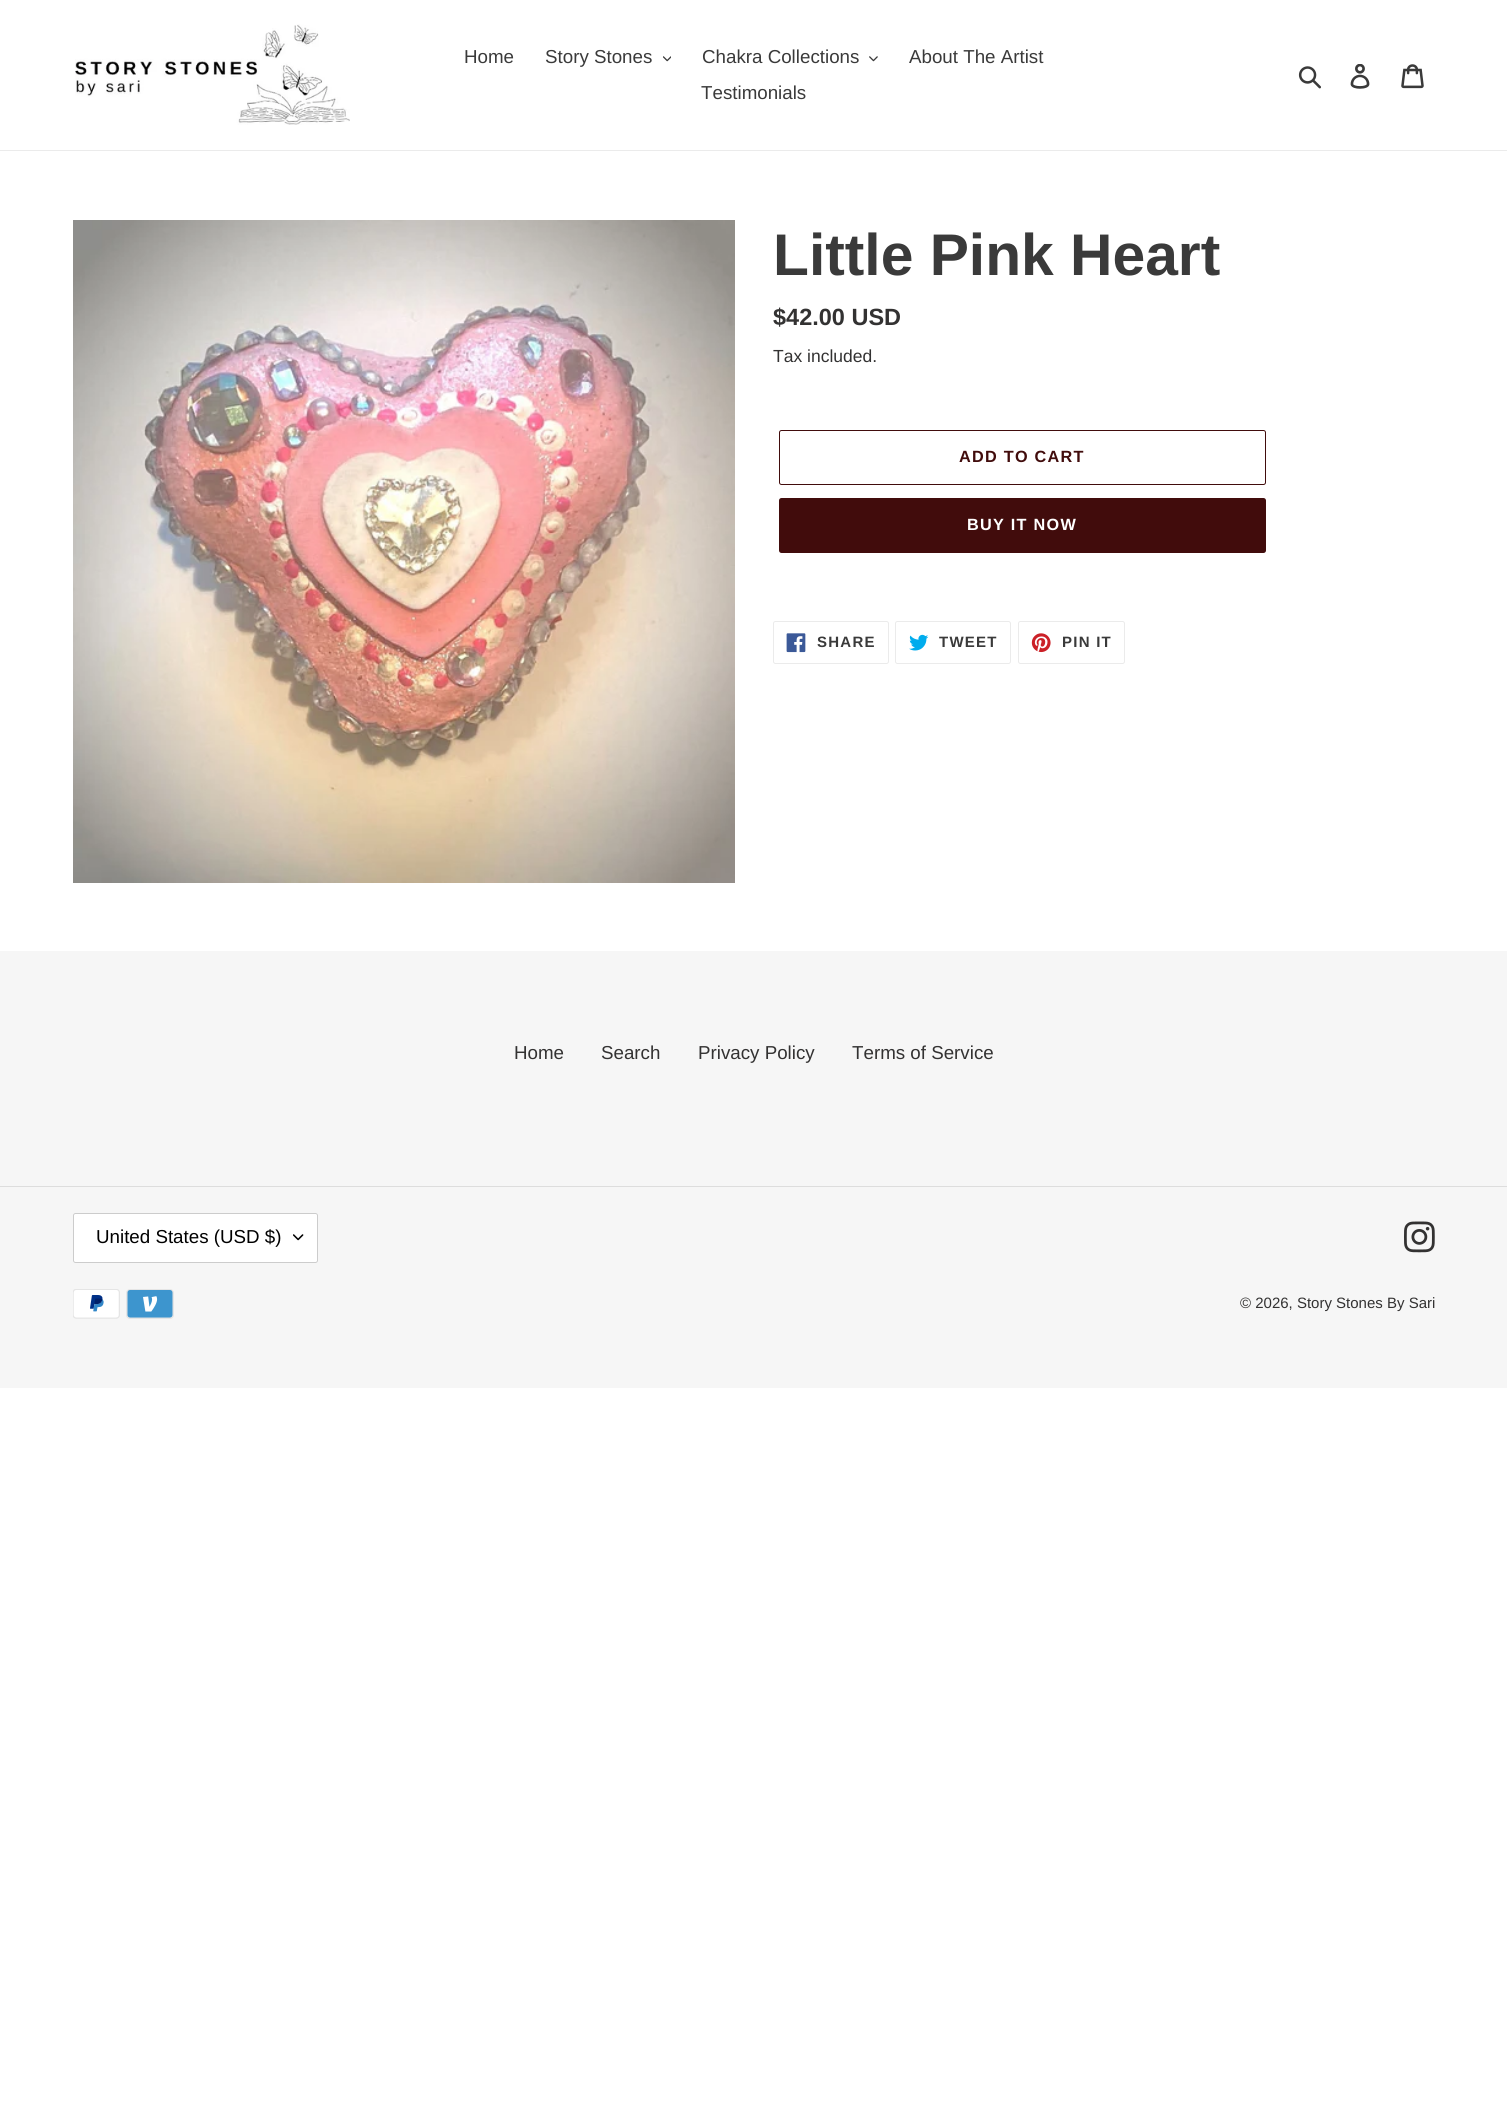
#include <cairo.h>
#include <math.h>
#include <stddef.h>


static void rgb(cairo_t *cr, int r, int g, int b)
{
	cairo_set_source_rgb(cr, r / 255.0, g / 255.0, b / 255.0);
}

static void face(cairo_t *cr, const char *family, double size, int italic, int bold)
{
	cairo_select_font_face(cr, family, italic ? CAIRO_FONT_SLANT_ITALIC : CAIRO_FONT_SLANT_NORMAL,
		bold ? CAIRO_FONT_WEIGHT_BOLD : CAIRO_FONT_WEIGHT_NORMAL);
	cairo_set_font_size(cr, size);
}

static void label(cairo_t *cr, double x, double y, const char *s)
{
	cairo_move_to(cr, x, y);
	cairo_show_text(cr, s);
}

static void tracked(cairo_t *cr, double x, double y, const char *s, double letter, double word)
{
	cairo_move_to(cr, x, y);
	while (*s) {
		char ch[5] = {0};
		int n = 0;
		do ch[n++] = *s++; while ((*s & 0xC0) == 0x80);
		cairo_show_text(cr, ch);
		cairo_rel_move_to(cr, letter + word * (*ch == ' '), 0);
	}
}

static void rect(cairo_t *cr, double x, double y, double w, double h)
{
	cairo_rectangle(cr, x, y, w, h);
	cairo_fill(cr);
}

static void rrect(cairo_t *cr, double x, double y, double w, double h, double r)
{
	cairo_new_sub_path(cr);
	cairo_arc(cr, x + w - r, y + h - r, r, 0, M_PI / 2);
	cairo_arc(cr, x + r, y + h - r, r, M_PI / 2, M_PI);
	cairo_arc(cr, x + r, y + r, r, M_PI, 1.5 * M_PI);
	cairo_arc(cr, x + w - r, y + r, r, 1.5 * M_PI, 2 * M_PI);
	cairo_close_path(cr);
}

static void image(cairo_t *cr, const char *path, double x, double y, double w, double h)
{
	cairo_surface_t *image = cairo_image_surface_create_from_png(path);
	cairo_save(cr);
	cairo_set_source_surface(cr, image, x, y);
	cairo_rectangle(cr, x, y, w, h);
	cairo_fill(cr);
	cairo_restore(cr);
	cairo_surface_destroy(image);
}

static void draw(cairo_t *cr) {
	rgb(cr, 255, 255, 255);
	cairo_paint(cr);
	rgb(cr, 235, 235, 235);
	rect(cr, 0, 150, 1507, 1);
	image(cr, "image0.png", 75, 24, 275, 101);
	face(cr, "Liberation Sans", 18.75, 0, 0);
	rgb(cr, 58, 58, 58);
	label(cr, 464, 63, "Home");
	label(cr, 545, 63, "Story Stones");
	image(cr, "image1.png", 663, 56, 8, 6);
	label(cr, 702, 63, "Chakra Collections");
	image(cr, "image2.png", 869, 56, 9, 6);
	label(cr, 909, 63, "About The Artist");
	label(cr, 701, 99, "Testimonials");
	image(cr, "image3.png", 1298, 66, 23, 23);
	image(cr, "image4.png", 1350, 64, 20, 25);
	image(cr, "image5.png", 1401, 64, 23, 25);
	image(cr, "image6.png", 73, 220, 662, 663);
	face(cr, "Liberation Sans", 58.75, 0, 1);
	label(cr, 773, 275, "Little Pink Heart");
	face(cr, "Liberation Sans", 23.5, 0, 1);
	rgb(cr, 51, 50, 50);
	label(cr, 773, 325, "$42.00 USD");
	face(cr, "Liberation Sans", 17.5, 0, 0);
	label(cr, 773, 362, "Tax included.");
	rrect(cr, 779.5, 430.5, 486, 54, 2);
	rgb(cr, 65, 12, 12);
	cairo_set_line_width(cr, 1);
	cairo_stroke(cr);
	face(cr, "Liberation Sans", 16.25, 0, 1);
	tracked(cr, 959, 462, "ADD TO CART", 1.25, 0);
	rrect(cr, 779, 498, 487, 55, 2.5);
	cairo_fill(cr);
	rgb(cr, 255, 255, 255);
	tracked(cr, 967, 530, "BUY IT NOW", 1.25, 0);
	rrect(cr, 773.5, 621.5, 115, 42, 2);
	rgb(cr, 235, 235, 235);
	cairo_stroke(cr);
	image(cr, "image7.png", 786, 633, 20, 20);
	face(cr, "Liberation Sans", 15, 0, 1);
	rgb(cr, 58, 58, 58);
	tracked(cr, 817, 647, "SHARE", 1.25, 0);
	rrect(cr, 895.5, 621.5, 115, 42, 2);
	rgb(cr, 235, 235, 235);
	cairo_stroke(cr);
	image(cr, "image8.png", 909, 634, 20, 17);
	rgb(cr, 58, 58, 58);
	tracked(cr, 939, 647, "TWEET", 1.25, 0);
	rrect(cr, 1018.5, 621.5, 106, 42, 2);
	rgb(cr, 235, 235, 235);
	cairo_stroke(cr);
	image(cr, "image9.png", 1031, 633, 20, 20);
	rgb(cr, 58, 58, 58);
	tracked(cr, 1062, 647, "PIN IT", 1.25, 0);
	rgb(cr, 246, 246, 246);
	rect(cr, 0, 951, 1507, 437);
	face(cr, "Liberation Sans", 18.75, 0, 0);
	rgb(cr, 51, 50, 50);
	label(cr, 514, 1059, "Home");
	label(cr, 601, 1059, "Search");
	label(cr, 698, 1059, "Privacy Policy");
	label(cr, 852, 1059, "Terms of Service");
	rgb(cr, 221, 221, 221);
	rect(cr, 0, 1186, 1507, 1);
	rgb(cr, 255, 255, 255);
	rrect(cr, 73, 1213, 245, 50, 2.5);
	cairo_fill(cr);
	image(cr, "image10.png", 293, 1234, 11, 7);
	rrect(cr, 73.5, 1213.5, 244, 49, 2);
	rgb(cr, 204, 204, 204);
	cairo_stroke(cr);
	rgb(cr, 0, 0, 0);
	label(cr, 96, 1243, "United States (USD $)");
	image(cr, "image11.png", 1404, 1221, 31, 32);
	image(cr, "image12.png", 73, 1289, 47, 30);
	image(cr, "image13.png", 126, 1289, 48, 30);
	face(cr, "Liberation Sans", 15, 0, 0);
	rgb(cr, 51, 50, 50);
	label(cr, 1240, 1308, "© 2026, Story Stones By Sari");
}

int main(void) {
	cairo_surface_t *surface = cairo_image_surface_create(CAIRO_FORMAT_RGB24, 1507, 2108);
	cairo_t *cr = cairo_create(surface);
	cairo_font_options_t *options = cairo_font_options_create();
	cairo_font_options_set_hint_metrics(options, CAIRO_HINT_METRICS_OFF);
	cairo_font_options_set_hint_style(options, CAIRO_HINT_STYLE_NONE);
	cairo_set_font_options(cr, options);
	cairo_set_miter_limit(cr, 4);
	draw(cr);
	cairo_surface_write_to_png(surface, "render.png");
	cairo_font_options_destroy(options);
	cairo_destroy(cr);
	cairo_surface_destroy(surface);
	return 0;
}
